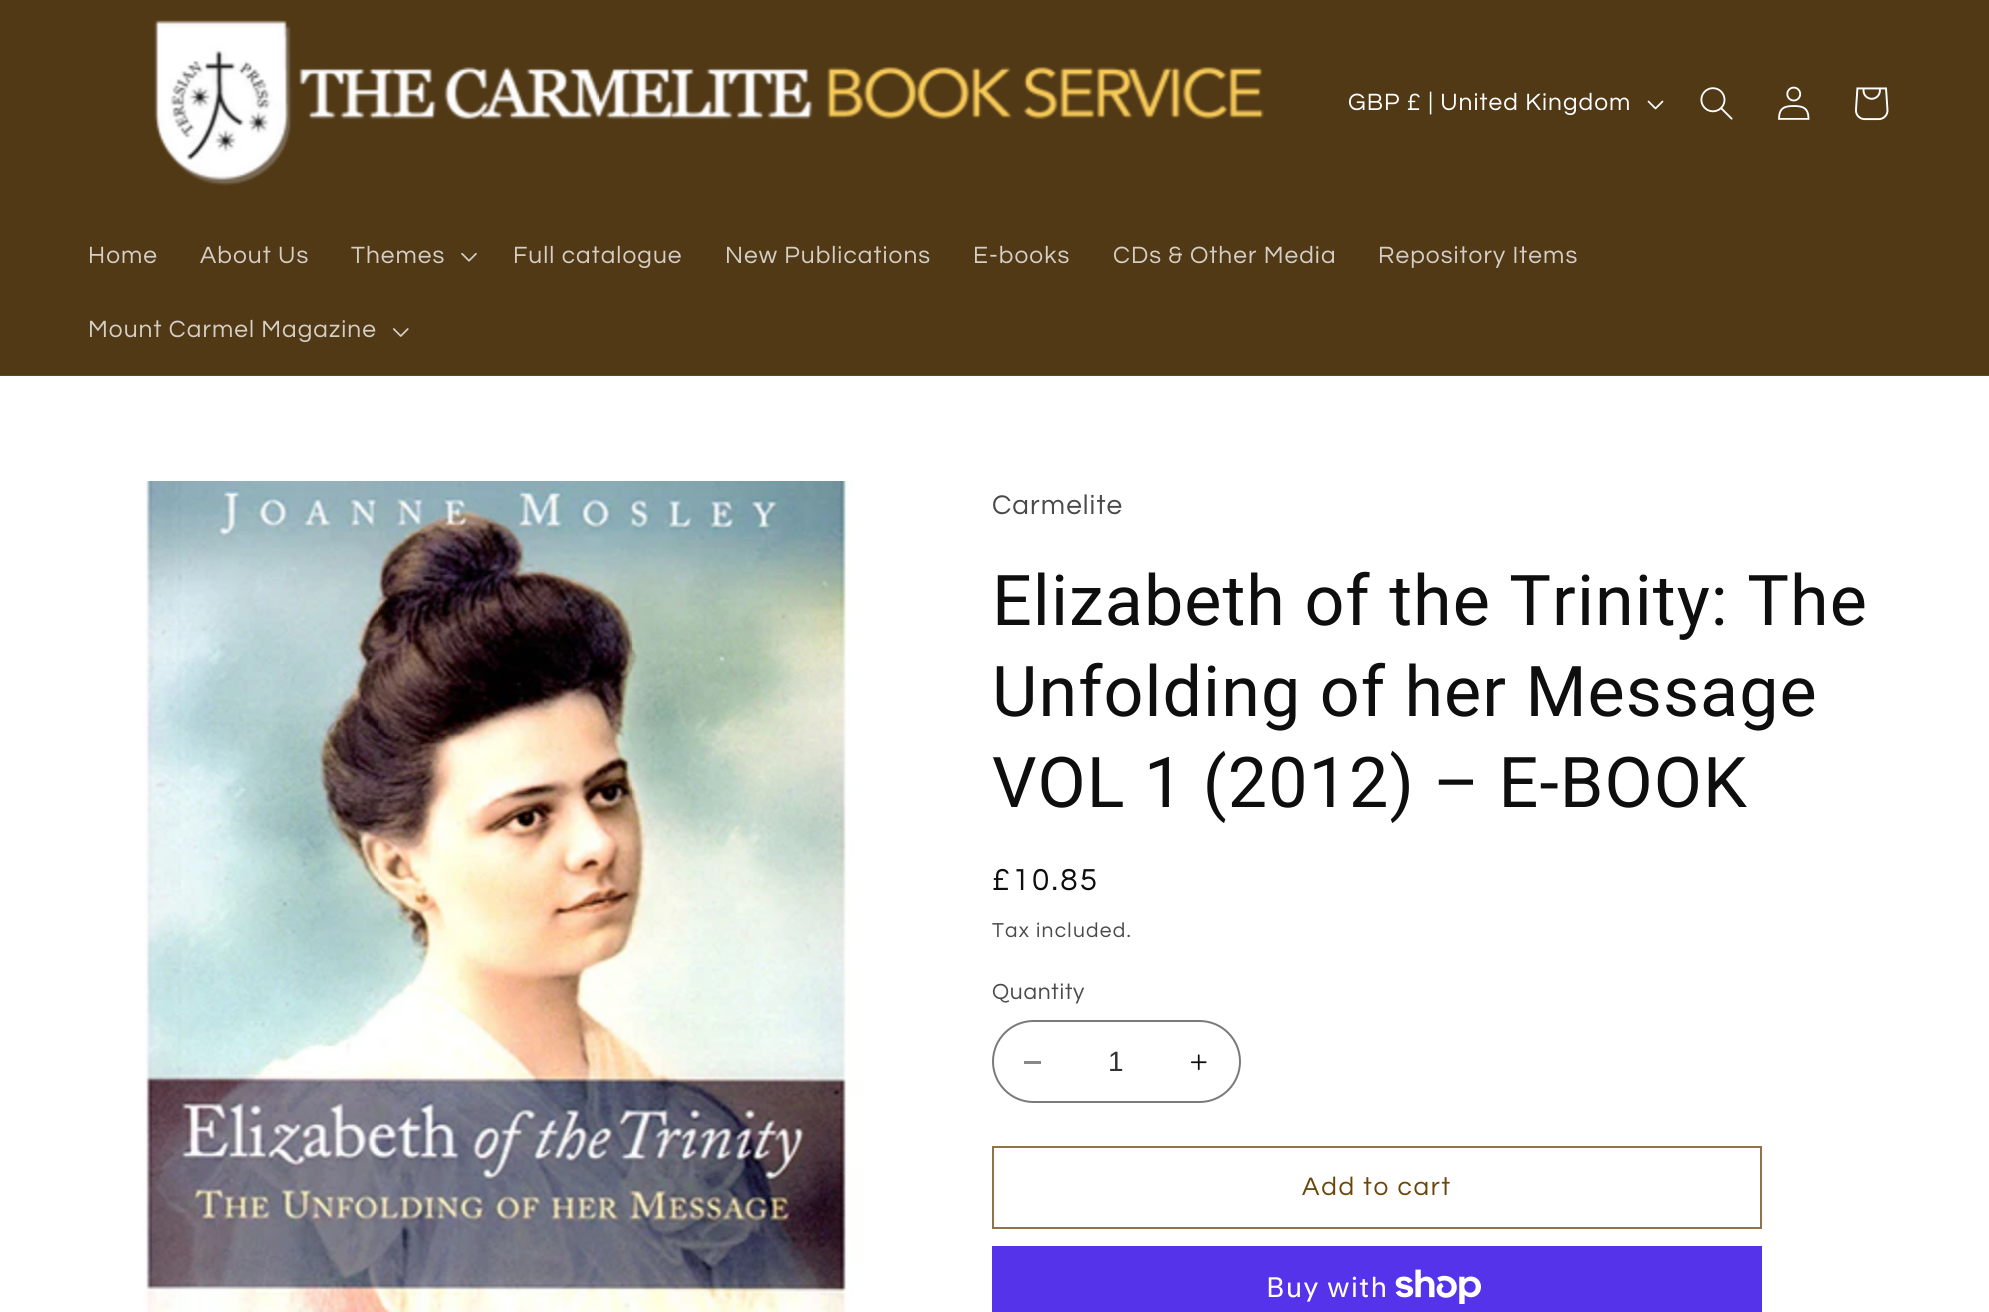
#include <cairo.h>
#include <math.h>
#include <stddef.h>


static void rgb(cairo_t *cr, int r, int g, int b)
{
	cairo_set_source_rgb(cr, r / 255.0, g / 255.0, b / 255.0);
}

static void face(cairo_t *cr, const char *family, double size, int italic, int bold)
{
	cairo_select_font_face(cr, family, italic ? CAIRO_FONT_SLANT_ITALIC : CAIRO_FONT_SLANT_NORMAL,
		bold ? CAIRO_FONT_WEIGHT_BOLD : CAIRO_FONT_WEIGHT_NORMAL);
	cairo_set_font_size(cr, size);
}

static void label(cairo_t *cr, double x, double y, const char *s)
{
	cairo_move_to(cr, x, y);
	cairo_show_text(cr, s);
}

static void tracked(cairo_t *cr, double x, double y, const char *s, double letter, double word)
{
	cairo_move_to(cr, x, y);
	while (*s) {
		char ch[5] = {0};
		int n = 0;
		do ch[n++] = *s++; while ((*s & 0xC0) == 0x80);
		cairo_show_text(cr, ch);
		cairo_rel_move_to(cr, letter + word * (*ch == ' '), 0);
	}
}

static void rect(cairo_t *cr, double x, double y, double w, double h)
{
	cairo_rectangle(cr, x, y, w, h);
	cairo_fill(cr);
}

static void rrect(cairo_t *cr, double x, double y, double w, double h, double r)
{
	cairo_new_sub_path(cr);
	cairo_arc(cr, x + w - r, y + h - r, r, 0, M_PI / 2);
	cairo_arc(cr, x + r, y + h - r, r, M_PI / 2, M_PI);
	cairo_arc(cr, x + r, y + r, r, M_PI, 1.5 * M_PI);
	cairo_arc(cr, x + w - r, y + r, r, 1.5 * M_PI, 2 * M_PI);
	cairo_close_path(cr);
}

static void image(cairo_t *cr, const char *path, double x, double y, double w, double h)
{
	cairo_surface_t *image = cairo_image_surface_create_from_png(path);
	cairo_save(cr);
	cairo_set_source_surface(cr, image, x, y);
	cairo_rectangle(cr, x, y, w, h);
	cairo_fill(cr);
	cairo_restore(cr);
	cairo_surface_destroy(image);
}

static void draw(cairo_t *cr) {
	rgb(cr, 255, 255, 255);
	cairo_paint(cr);
	rgb(cr, 81, 57, 22);
	rect(cr, 0, 0, 1989, 375);
	rgb(cr, 95, 73, 41);
	rect(cr, 0, 375, 1989, 1);
	image(cr, "image0.png", 154, 20, 1110, 166);
	face(cr, "Questrial", 24.5, 0, 0);
	rgb(cr, 255, 255, 255);
	tracked(cr, 1348, 110, "GBP £ | United Kingdom", 1.05, 0);
	image(cr, "image1.png", 1647, 100, 17, 10);
	image(cr, "image2.png", 1700, 87, 33, 33);
	image(cr, "image3.png", 1778, 86, 32, 34);
	image(cr, "image4.png", 1855, 87, 34, 34);
	rgb(cr, 212, 206, 197);
	tracked(cr, 88, 263, "Home", 1.05, 0);
	tracked(cr, 200, 263, "About Us", 1.05, 0);
	tracked(cr, 351, 263, "Themes", 1.05, 0);
	image(cr, "image5.png", 461, 253, 16, 9);
	tracked(cr, 513, 263, "Full catalogue", 1.05, 0);
	tracked(cr, 725, 263, "New Publications", 1.05, 0);
	tracked(cr, 973, 263, "E-books", 1.05, 0);
	tracked(cr, 1113, 263, "CDs & Other Media", 1.05, 0);
	tracked(cr, 1378, 263, "Repository Items", 1.05, 0);
	tracked(cr, 88, 337, "Mount Carmel Magazine", 1.05, 0);
	image(cr, "image6.png", 393, 328, 16, 9);
	image(cr, "image7.png", 143, 481, 710, 831);
	face(cr, "Questrial", 28, 0, 0);
	rgb(cr, 74, 74, 74);
	tracked(cr, 992, 514, "Carmelite", 1.05, 0);
	face(cr, "Roboto", 70, 0, 0);
	rgb(cr, 14, 14, 14);
	tracked(cr, 992, 625, "Elizabeth of the Trinity: The", 1.05, 0);
	tracked(cr, 992, 716, "Unfolding of her Message", 1.05, 0);
	tracked(cr, 992, 807, "VOL 1 (2012) – E-BOOK", 1.05, 0);
	face(cr, "Questrial", 31.5, 0, 0);
	tracked(cr, 992, 890, "£10.85", 2.25, 0);
	face(cr, "Questrial", 21, 0, 0);
	rgb(cr, 74, 74, 74);
	tracked(cr, 992, 937, "Tax included.", 1.25, 0);
	face(cr, "Questrial", 22.75, 0, 0);
	tracked(cr, 992, 999, "Quantity", 0.75, 0);
	rgb(cr, 135, 135, 135);
	rect(cr, 1024, 1061, 17, 3);
	image(cr, "image8.png", 1190, 1054, 17, 17);
	rrect(cr, 993, 1021, 247, 81, 40.5);
	rgb(cr, 122, 122, 122);
	cairo_stroke(cr);
	face(cr, "Liberation Sans", 28, 0, 0);
	rgb(cr, 50, 50, 50);
	label(cr, 1108, 1071, "1");
	cairo_rectangle(cr, 993, 1147, 768, 81);
	rgb(cr, 144, 116, 71);
	cairo_stroke(cr);
	face(cr, "Questrial", 26.25, 0, 0);
	rgb(cr, 107, 70, 9);
	tracked(cr, 1302, 1195, "Add to cart", 1.75, 0);
	rgb(cr, 84, 51, 235);
	rect(cr, 992, 1246, 770, 66);
	face(cr, "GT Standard", 28, 0, 0);
	rgb(cr, 255, 255, 255);
	tracked(cr, 1266, 1297, "Buy with", 1.05, 0);
	image(cr, "image9.png", 1395, 1269, 86, 35);
}

int main(void) {
	cairo_surface_t *surface = cairo_image_surface_create(CAIRO_FORMAT_RGB24, 1989, 1312);
	cairo_t *cr = cairo_create(surface);
	cairo_font_options_t *options = cairo_font_options_create();
	cairo_font_options_set_hint_metrics(options, CAIRO_HINT_METRICS_OFF);
	cairo_font_options_set_hint_style(options, CAIRO_HINT_STYLE_NONE);
	cairo_set_font_options(cr, options);
	cairo_set_miter_limit(cr, 4);
	draw(cr);
	cairo_surface_write_to_png(surface, "render.png");
	cairo_font_options_destroy(options);
	cairo_destroy(cr);
	cairo_surface_destroy(surface);
	return 0;
}
